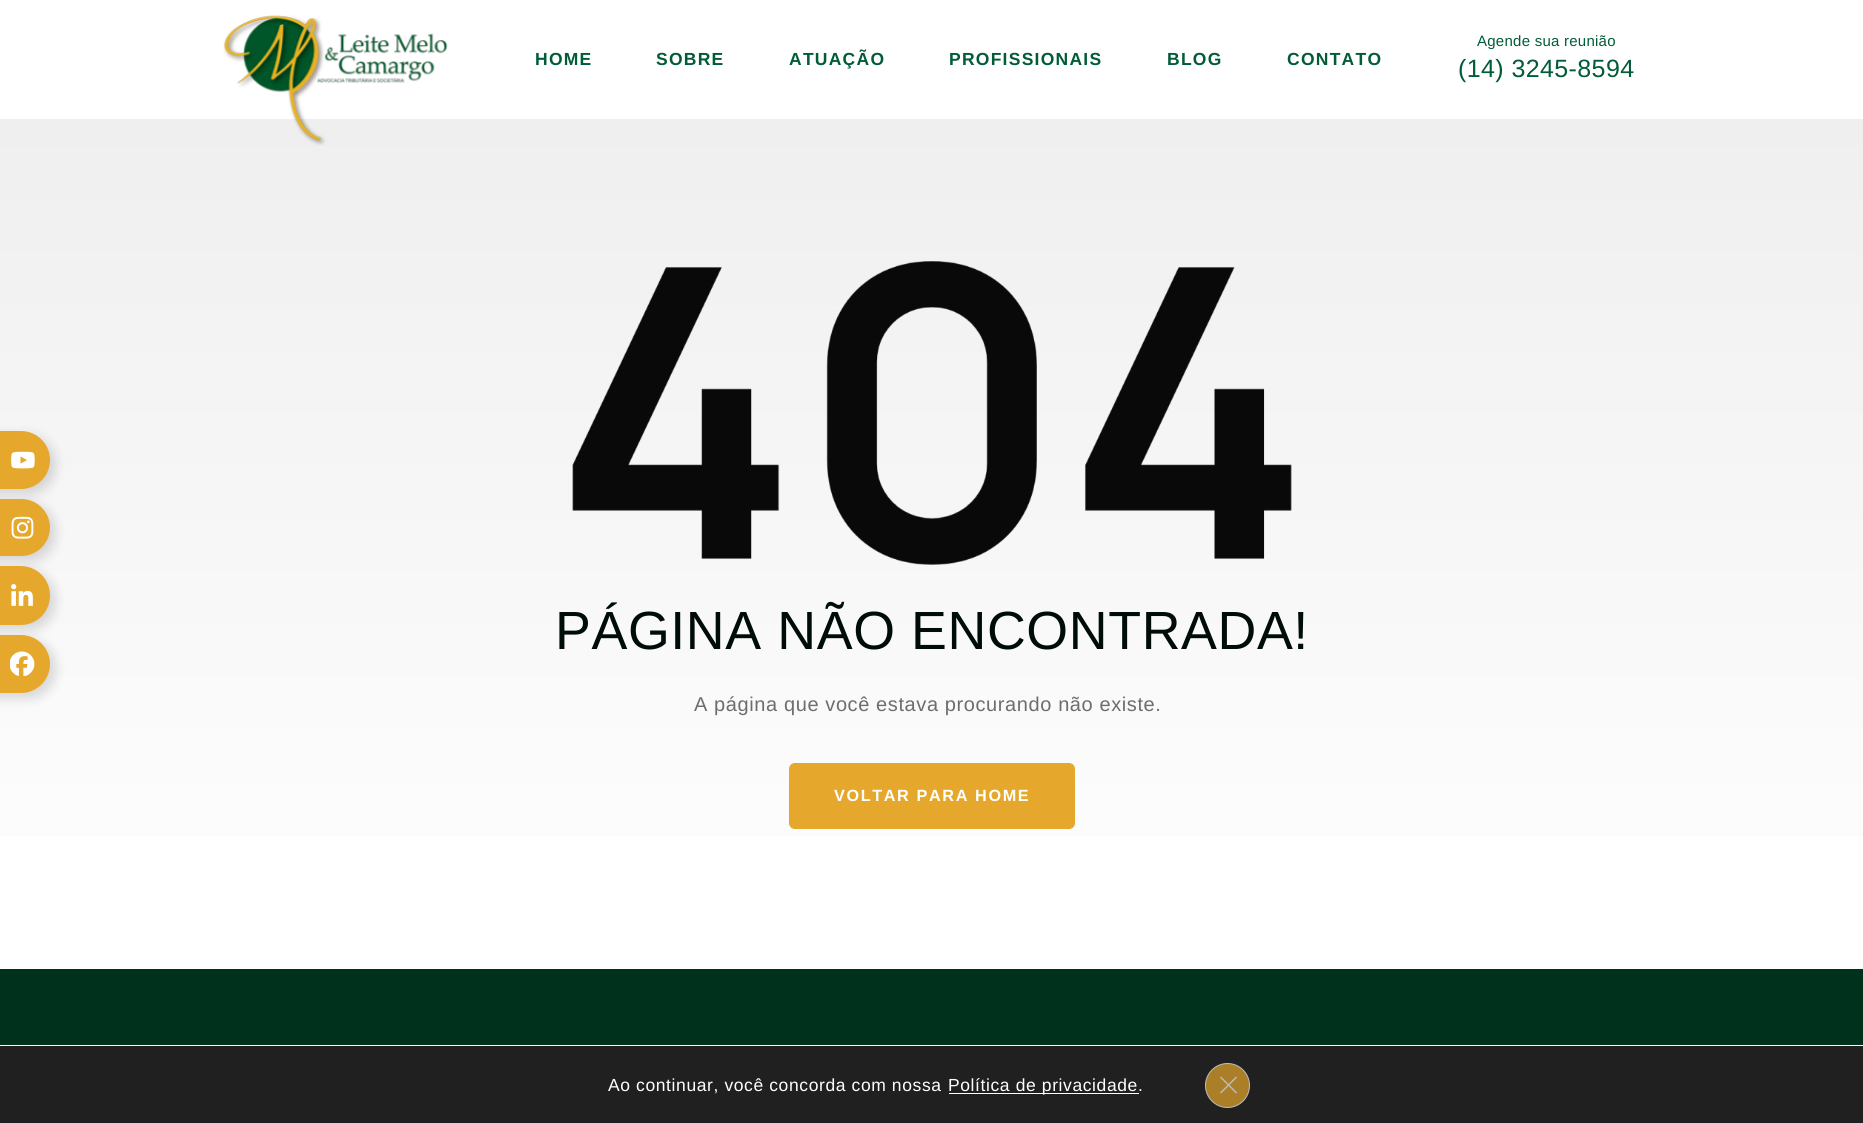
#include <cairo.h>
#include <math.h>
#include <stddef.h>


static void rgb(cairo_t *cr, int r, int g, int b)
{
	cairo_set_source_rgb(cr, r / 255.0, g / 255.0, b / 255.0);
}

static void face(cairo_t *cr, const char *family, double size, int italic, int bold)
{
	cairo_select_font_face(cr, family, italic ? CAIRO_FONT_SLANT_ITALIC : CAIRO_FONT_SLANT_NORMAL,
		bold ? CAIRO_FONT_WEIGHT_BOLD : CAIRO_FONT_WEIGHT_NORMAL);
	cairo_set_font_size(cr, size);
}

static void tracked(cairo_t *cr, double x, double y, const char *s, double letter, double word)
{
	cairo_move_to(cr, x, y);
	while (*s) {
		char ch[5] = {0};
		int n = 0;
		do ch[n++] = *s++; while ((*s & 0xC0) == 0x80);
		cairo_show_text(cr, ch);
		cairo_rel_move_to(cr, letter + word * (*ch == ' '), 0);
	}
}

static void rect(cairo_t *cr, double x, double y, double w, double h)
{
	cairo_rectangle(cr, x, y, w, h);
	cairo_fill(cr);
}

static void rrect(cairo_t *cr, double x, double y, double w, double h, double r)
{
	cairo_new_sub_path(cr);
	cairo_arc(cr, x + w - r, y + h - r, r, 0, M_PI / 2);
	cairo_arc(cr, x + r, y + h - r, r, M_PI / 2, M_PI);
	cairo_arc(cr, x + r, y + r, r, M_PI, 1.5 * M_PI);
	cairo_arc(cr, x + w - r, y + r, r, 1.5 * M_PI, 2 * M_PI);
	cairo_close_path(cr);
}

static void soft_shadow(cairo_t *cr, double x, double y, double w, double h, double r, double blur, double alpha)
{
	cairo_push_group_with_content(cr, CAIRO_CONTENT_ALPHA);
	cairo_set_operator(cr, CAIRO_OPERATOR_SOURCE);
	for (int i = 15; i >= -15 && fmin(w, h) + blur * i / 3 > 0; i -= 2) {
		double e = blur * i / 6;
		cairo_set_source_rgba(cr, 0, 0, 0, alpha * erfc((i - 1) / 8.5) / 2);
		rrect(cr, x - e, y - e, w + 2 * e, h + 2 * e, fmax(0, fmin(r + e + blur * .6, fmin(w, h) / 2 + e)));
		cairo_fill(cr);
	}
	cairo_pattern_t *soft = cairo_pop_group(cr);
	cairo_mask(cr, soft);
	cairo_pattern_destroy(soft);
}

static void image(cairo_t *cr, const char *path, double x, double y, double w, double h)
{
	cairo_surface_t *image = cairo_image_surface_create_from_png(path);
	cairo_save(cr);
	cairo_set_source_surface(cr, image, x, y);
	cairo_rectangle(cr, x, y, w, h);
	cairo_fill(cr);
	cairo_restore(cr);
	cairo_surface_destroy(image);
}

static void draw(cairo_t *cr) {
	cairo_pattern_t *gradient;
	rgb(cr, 255, 255, 255);
	cairo_paint(cr);
	gradient = cairo_pattern_create_linear(932, 117, 932, 969);
	cairo_pattern_add_color_stop_rgba(gradient, 0, 0.937, 0.937, 0.937, 1);
	cairo_pattern_add_color_stop_rgba(gradient, 1, 1, 1, 1, 1);
	cairo_set_source(cr, gradient);
	cairo_pattern_destroy(gradient);
	rect(cr, 0, 119, 1863, 717);
	image(cr, "image0.png", 223, 15, 225, 131);
	face(cr, "Liberation Sans", 17.5, 0, 1);
	rgb(cr, 1, 92, 55);
	tracked(cr, 535, 65, "HOME", 1.25, 0);
	tracked(cr, 656, 65, "SOBRE", 1.25, 0);
	tracked(cr, 789, 65, "ATUAÇÃO", 1.25, 0);
	tracked(cr, 949, 65, "PROFISSIONAIS", 1.25, 0);
	tracked(cr, 1167, 65, "BLOG", 1.25, 0);
	tracked(cr, 1287, 65, "CONTATO", 1.25, 0);
	face(cr, "Liberation Sans", 15, 0, 0);
	tracked(cr, 1477, 46, "Agende sua reunião", 0.25, 0);
	face(cr, "Liberation Sans", 25, 0, 0);
	tracked(cr, 1458, 77, "(14) 3245-8594", 0.4, 0);
	rgb(cr, 0, 0, 0);
	soft_shadow(cr, -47, 436, 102, 58, 29, 6, 0.15);
	rgb(cr, 229, 168, 44);
	cairo_new_path(cr);
	cairo_move_to(cr, -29, 431);
	cairo_line_to(cr, 21, 431);
	cairo_curve_to(cr, 37, 431, 50, 444, 50, 460);
	cairo_curve_to(cr, 50, 476, 37, 489, 21, 489);
	cairo_line_to(cr, -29, 489);
	cairo_close_path(cr);
	cairo_fill(cr);
	image(cr, "image1.png", 11, 451, 24, 18);
	rgb(cr, 0, 0, 0);
	soft_shadow(cr, -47, 504, 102, 57, 28.5, 6, 0.15);
	rgb(cr, 229, 168, 44);
	cairo_new_path(cr);
	cairo_move_to(cr, -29, 499);
	cairo_line_to(cr, 21.5, 499);
	cairo_curve_to(cr, 37, 499, 50, 512, 50, 527.5);
	cairo_curve_to(cr, 50, 543, 37, 556, 21.5, 556);
	cairo_line_to(cr, -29, 556);
	cairo_close_path(cr);
	cairo_fill(cr);
	image(cr, "image2.png", 11, 516, 23, 23);
	rgb(cr, 0, 0, 0);
	soft_shadow(cr, -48, 571, 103, 59, 29.5, 6, 0.15);
	rgb(cr, 229, 168, 44);
	cairo_new_path(cr);
	cairo_move_to(cr, -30, 566);
	cairo_line_to(cr, 20.5, 566);
	cairo_curve_to(cr, 37, 566, 50, 579, 50, 595.5);
	cairo_curve_to(cr, 50, 612, 37, 625, 20.5, 625);
	cairo_line_to(cr, -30, 625);
	cairo_close_path(cr);
	cairo_fill(cr);
	image(cr, "image3.png", 11, 584, 22, 22);
	rgb(cr, 0, 0, 0);
	soft_shadow(cr, -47, 640, 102, 58, 29, 6, 0.15);
	rgb(cr, 229, 168, 44);
	cairo_new_path(cr);
	cairo_move_to(cr, -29, 635);
	cairo_line_to(cr, 21, 635);
	cairo_curve_to(cr, 37, 635, 50, 648, 50, 664);
	cairo_curve_to(cr, 50, 680, 37, 693, 21, 693);
	cairo_line_to(cr, -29, 693);
	cairo_close_path(cr);
	cairo_fill(cr);
	image(cr, "image4.png", 10, 651, 25, 25);
	image(cr, "image5.png", 572, 261, 720, 304);
	face(cr, "Liberation Sans", 53.75, 0, 0);
	rgb(cr, 0, 12, 7);
	tracked(cr, 555, 649, "PÁGINA NÃO ENCONTRADA!", 0.6, 0);
	face(cr, "Liberation Sans", 20, 0, 0);
	rgb(cr, 108, 109, 112);
	tracked(cr, 694, 711, "A página que você estava procurando não existe.", 0.6, 0);
	rgb(cr, 229, 168, 44);
	rrect(cr, 789.5, 763.5, 285, 65, 5.5);
	cairo_fill_preserve(cr);
	cairo_set_line_width(cr, 1);
	cairo_stroke(cr);
	face(cr, "Liberation Sans", 16.25, 0, 1);
	rgb(cr, 255, 255, 255);
	tracked(cr, 834, 801, "VOLTAR PARA HOME", 1.6, 0);
	rgb(cr, 0, 49, 29);
	rect(cr, 0, 969, 1863, 76);
	rgb(cr, 32, 32, 32);
	rect(cr, 0, 1046, 1863, 77);
	face(cr, "Liberation Sans", 17.5, 0, 0);
	rgb(cr, 255, 255, 255);
	tracked(cr, 608, 1091, "Ao continuar, você concorda com nossa", 0.6, 0);
	rect(cr, 949, 1093, 190, 1);
	tracked(cr, 948, 1091, "Política de privacidade.", 0.6, 0);
	rgb(cr, 170, 127, 40);
	cairo_new_path(cr);
	cairo_arc(cr, 1227.5, 1085.5, 22, 0, 2 * M_PI);
	cairo_fill_preserve(cr);
	rgb(cr, 188, 188, 188);
	cairo_stroke(cr);
	cairo_new_path(cr);
	cairo_move_to(cr, 1236, 1076.5);
	cairo_line_to(cr, 1237, 1077.5);
	cairo_line_to(cr, 1221, 1093.5);
	cairo_line_to(cr, 1220, 1092.5);
	cairo_close_path(cr);
	cairo_fill(cr);
	cairo_new_path(cr);
	cairo_move_to(cr, 1220, 1077.5);
	cairo_line_to(cr, 1221, 1076.5);
	cairo_line_to(cr, 1237, 1092.5);
	cairo_line_to(cr, 1236, 1093.5);
	cairo_close_path(cr);
	cairo_fill(cr);
}

int main(void) {
	cairo_surface_t *surface = cairo_image_surface_create(CAIRO_FORMAT_RGB24, 1863, 1123);
	cairo_t *cr = cairo_create(surface);
	cairo_font_options_t *options = cairo_font_options_create();
	cairo_font_options_set_hint_metrics(options, CAIRO_HINT_METRICS_OFF);
	cairo_font_options_set_hint_style(options, CAIRO_HINT_STYLE_NONE);
	cairo_set_font_options(cr, options);
	cairo_set_miter_limit(cr, 4);
	draw(cr);
	cairo_surface_write_to_png(surface, "render.png");
	cairo_font_options_destroy(options);
	cairo_destroy(cr);
	cairo_surface_destroy(surface);
	return 0;
}
